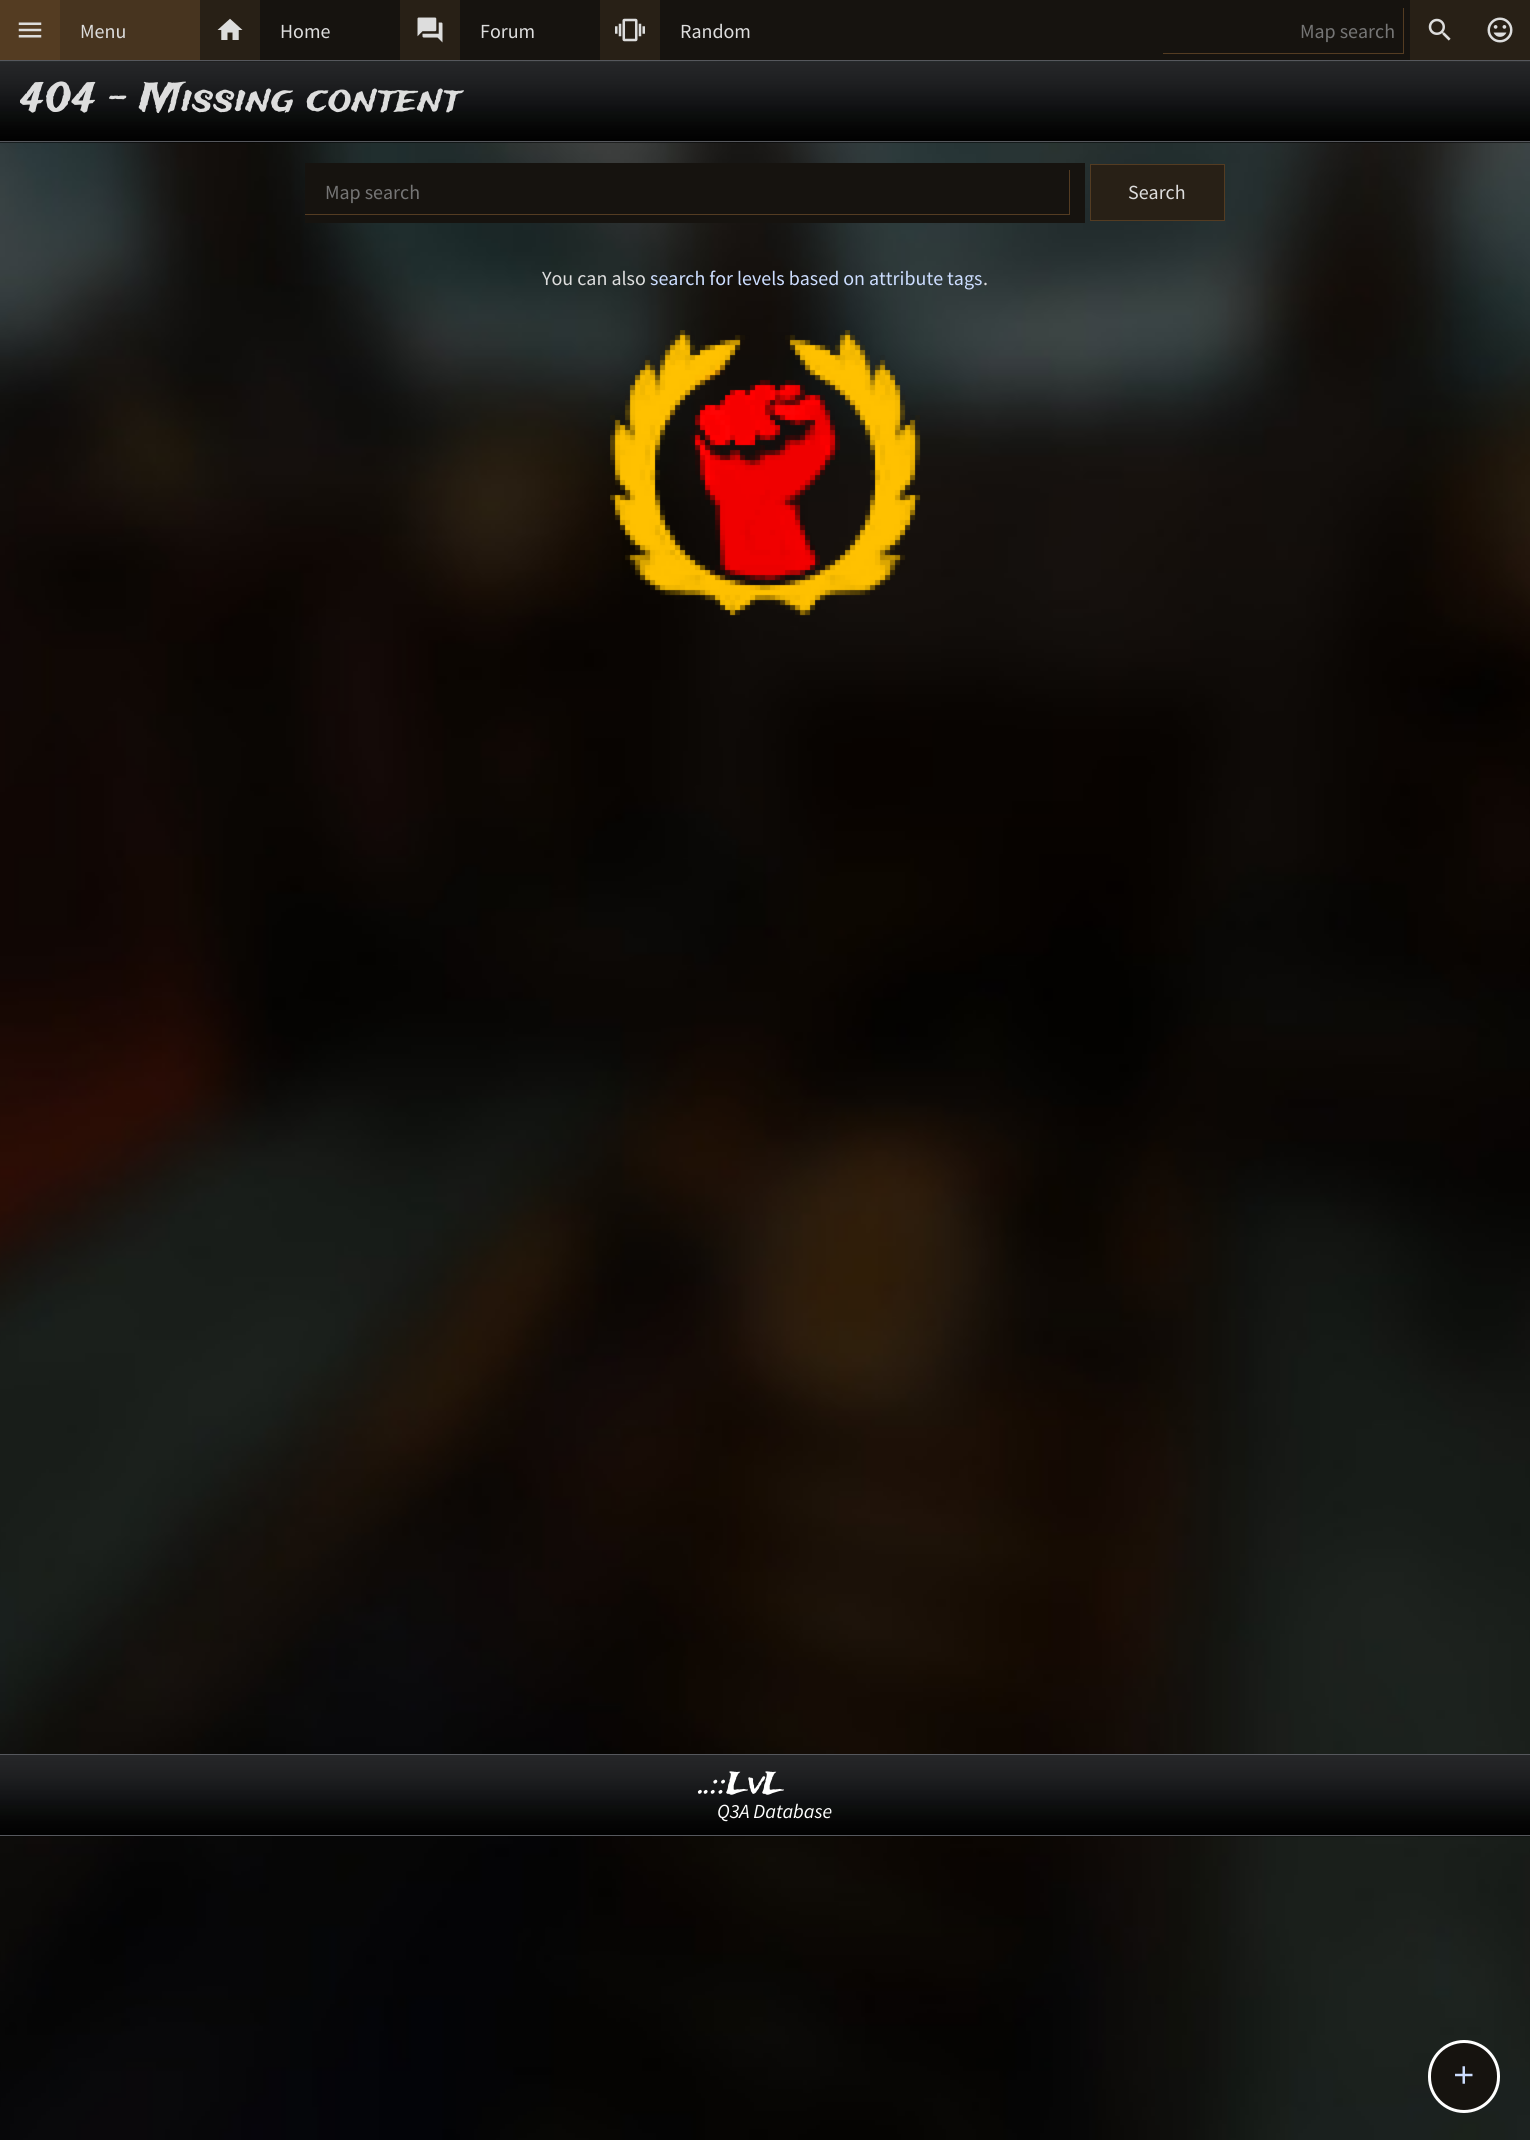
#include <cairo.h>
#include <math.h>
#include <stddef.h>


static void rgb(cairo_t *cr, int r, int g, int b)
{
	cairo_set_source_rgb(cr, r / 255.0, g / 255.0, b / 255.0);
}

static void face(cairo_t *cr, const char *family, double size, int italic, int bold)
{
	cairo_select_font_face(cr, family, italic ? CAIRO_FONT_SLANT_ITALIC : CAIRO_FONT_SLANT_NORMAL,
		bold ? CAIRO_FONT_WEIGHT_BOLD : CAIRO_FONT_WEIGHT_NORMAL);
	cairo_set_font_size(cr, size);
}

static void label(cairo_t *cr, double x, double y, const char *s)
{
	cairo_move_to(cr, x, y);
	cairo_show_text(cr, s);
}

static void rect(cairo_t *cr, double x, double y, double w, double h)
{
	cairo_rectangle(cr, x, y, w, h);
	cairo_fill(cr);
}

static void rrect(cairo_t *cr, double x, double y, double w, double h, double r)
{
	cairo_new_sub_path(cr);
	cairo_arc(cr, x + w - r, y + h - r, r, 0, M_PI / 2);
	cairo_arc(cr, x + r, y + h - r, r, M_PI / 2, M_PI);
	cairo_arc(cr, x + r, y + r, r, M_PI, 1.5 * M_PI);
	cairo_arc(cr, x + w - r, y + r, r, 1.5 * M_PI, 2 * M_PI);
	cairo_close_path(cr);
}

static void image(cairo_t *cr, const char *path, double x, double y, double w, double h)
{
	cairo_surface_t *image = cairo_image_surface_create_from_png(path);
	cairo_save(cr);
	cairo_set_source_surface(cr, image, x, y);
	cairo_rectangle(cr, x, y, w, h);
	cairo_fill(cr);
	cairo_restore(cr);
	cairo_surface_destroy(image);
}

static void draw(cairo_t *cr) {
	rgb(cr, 255, 255, 255);
	cairo_paint(cr);
	rgb(cr, 22, 19, 15);
	rect(cr, 260, 0, 1150, 60);
	rgb(cr, 84, 60, 34);
	rect(cr, 0, 0, 60, 60);
	image(cr, "image0.png", 18, 22, 24, 16);
	rgb(cr, 71, 52, 31);
	rect(cr, 60, 0, 140, 60);
	face(cr, "Source Sans Pro", 20, 0, 0);
	rgb(cr, 221, 221, 221);
	label(cr, 80, 38, "Menu");
	rgb(cr, 40, 32, 22);
	rect(cr, 200, 0, 60, 60);
	image(cr, "image1.png", 217, 18, 26, 22);
	rgb(cr, 221, 221, 221);
	label(cr, 280, 38, "Home");
	rgb(cr, 40, 32, 22);
	rect(cr, 400, 0, 60, 60);
	image(cr, "image2.png", 417, 17, 26, 26);
	rgb(cr, 221, 221, 221);
	label(cr, 480, 38, "Forum");
	rgb(cr, 40, 32, 22);
	rect(cr, 600, 0, 60, 60);
	image(cr, "image3.png", 615, 18, 30, 24);
	rgb(cr, 221, 221, 221);
	label(cr, 680, 38, "Random");
	rgb(cr, 84, 60, 34);
	rect(cr, 1403, 8, 1, 46);
	rect(cr, 1163, 53, 241, 1);
	rgb(cr, 117, 117, 117);
	label(cr, 1300, 38, "Map search");
	rgb(cr, 40, 32, 22);
	rect(cr, 1410, 0, 120, 60);
	image(cr, "image4.png", 1428, 18, 23, 23);
	image(cr, "image5.png", 1487, 17, 26, 26);
	image(cr, "image6.png", 0, 61, 1530, 2079);
	image(cr, "image7.png", 0, 61, 1530, 82);
	rgb(cr, 86, 88, 93);
	rect(cr, 0, 60, 1530, 1);
	rect(cr, 0, 141, 1530, 1);
	cairo_save(cr);
	cairo_rectangle(cr, 20, 61, 1510, 80);
	cairo_clip(cr);
	face(cr, "Trade Winds", 40, 0, 0);
	rgb(cr, 221, 221, 221);
	label(cr, 20, 111, "404 - Missing content");
	cairo_restore(cr);
	rgb(cr, 22, 19, 15);
	rect(cr, 305, 163, 780, 60);
	rgb(cr, 84, 60, 34);
	rect(cr, 1069, 170, 1, 45);
	rect(cr, 305, 214, 765, 1);
	rgb(cr, 117, 117, 117);
	label(cr, 325, 199, "Map search");
	rgb(cr, 40, 32, 22);
	cairo_rectangle(cr, 1090.5, 164.5, 134, 56);
	cairo_fill_preserve(cr);
	rgb(cr, 84, 60, 34);
	cairo_set_line_width(cr, 1);
	cairo_stroke(cr);
	rgb(cr, 221, 221, 221);
	label(cr, 1128, 199, "Search");
	label(cr, 542, 285, "You can also");
	rgb(cr, 204, 221, 255);
	label(cr, 650, 285, "search for levels based on attribute tags");
	rgb(cr, 221, 221, 221);
	label(cr, 983, 285, ".");
	image(cr, "image8.png", 610, 330, 311, 286);
	rgb(cr, 22, 19, 15);
	rrect(cr, 1429.5, 2041.5, 69, 70, 34.5);
	cairo_fill_preserve(cr);
	rgb(cr, 255, 255, 255);
	cairo_set_line_width(cr, 3);
	cairo_stroke(cr);
	image(cr, "image9.png", 1455, 2066, 18, 18);
	image(cr, "image10.png", 0, 1755, 1530, 82);
	rgb(cr, 86, 88, 93);
	rect(cr, 0, 1754, 1530, 1);
	rect(cr, 0, 1835, 1530, 1);
	face(cr, "Trade Winds", 30, 0, 0);
	rgb(cr, 255, 255, 255);
	label(cr, 700, 1793, "..::LvL");
	face(cr, "Source Sans Pro", 20, 1, 0);
	label(cr, 717, 1818, "Q3A Database");
}

int main(void) {
	cairo_surface_t *surface = cairo_image_surface_create(CAIRO_FORMAT_RGB24, 1530, 2140);
	cairo_t *cr = cairo_create(surface);
	cairo_font_options_t *options = cairo_font_options_create();
	cairo_font_options_set_hint_metrics(options, CAIRO_HINT_METRICS_OFF);
	cairo_font_options_set_hint_style(options, CAIRO_HINT_STYLE_NONE);
	cairo_set_font_options(cr, options);
	cairo_set_miter_limit(cr, 4);
	draw(cr);
	cairo_surface_write_to_png(surface, "render.png");
	cairo_font_options_destroy(options);
	cairo_destroy(cr);
	cairo_surface_destroy(surface);
	return 0;
}
